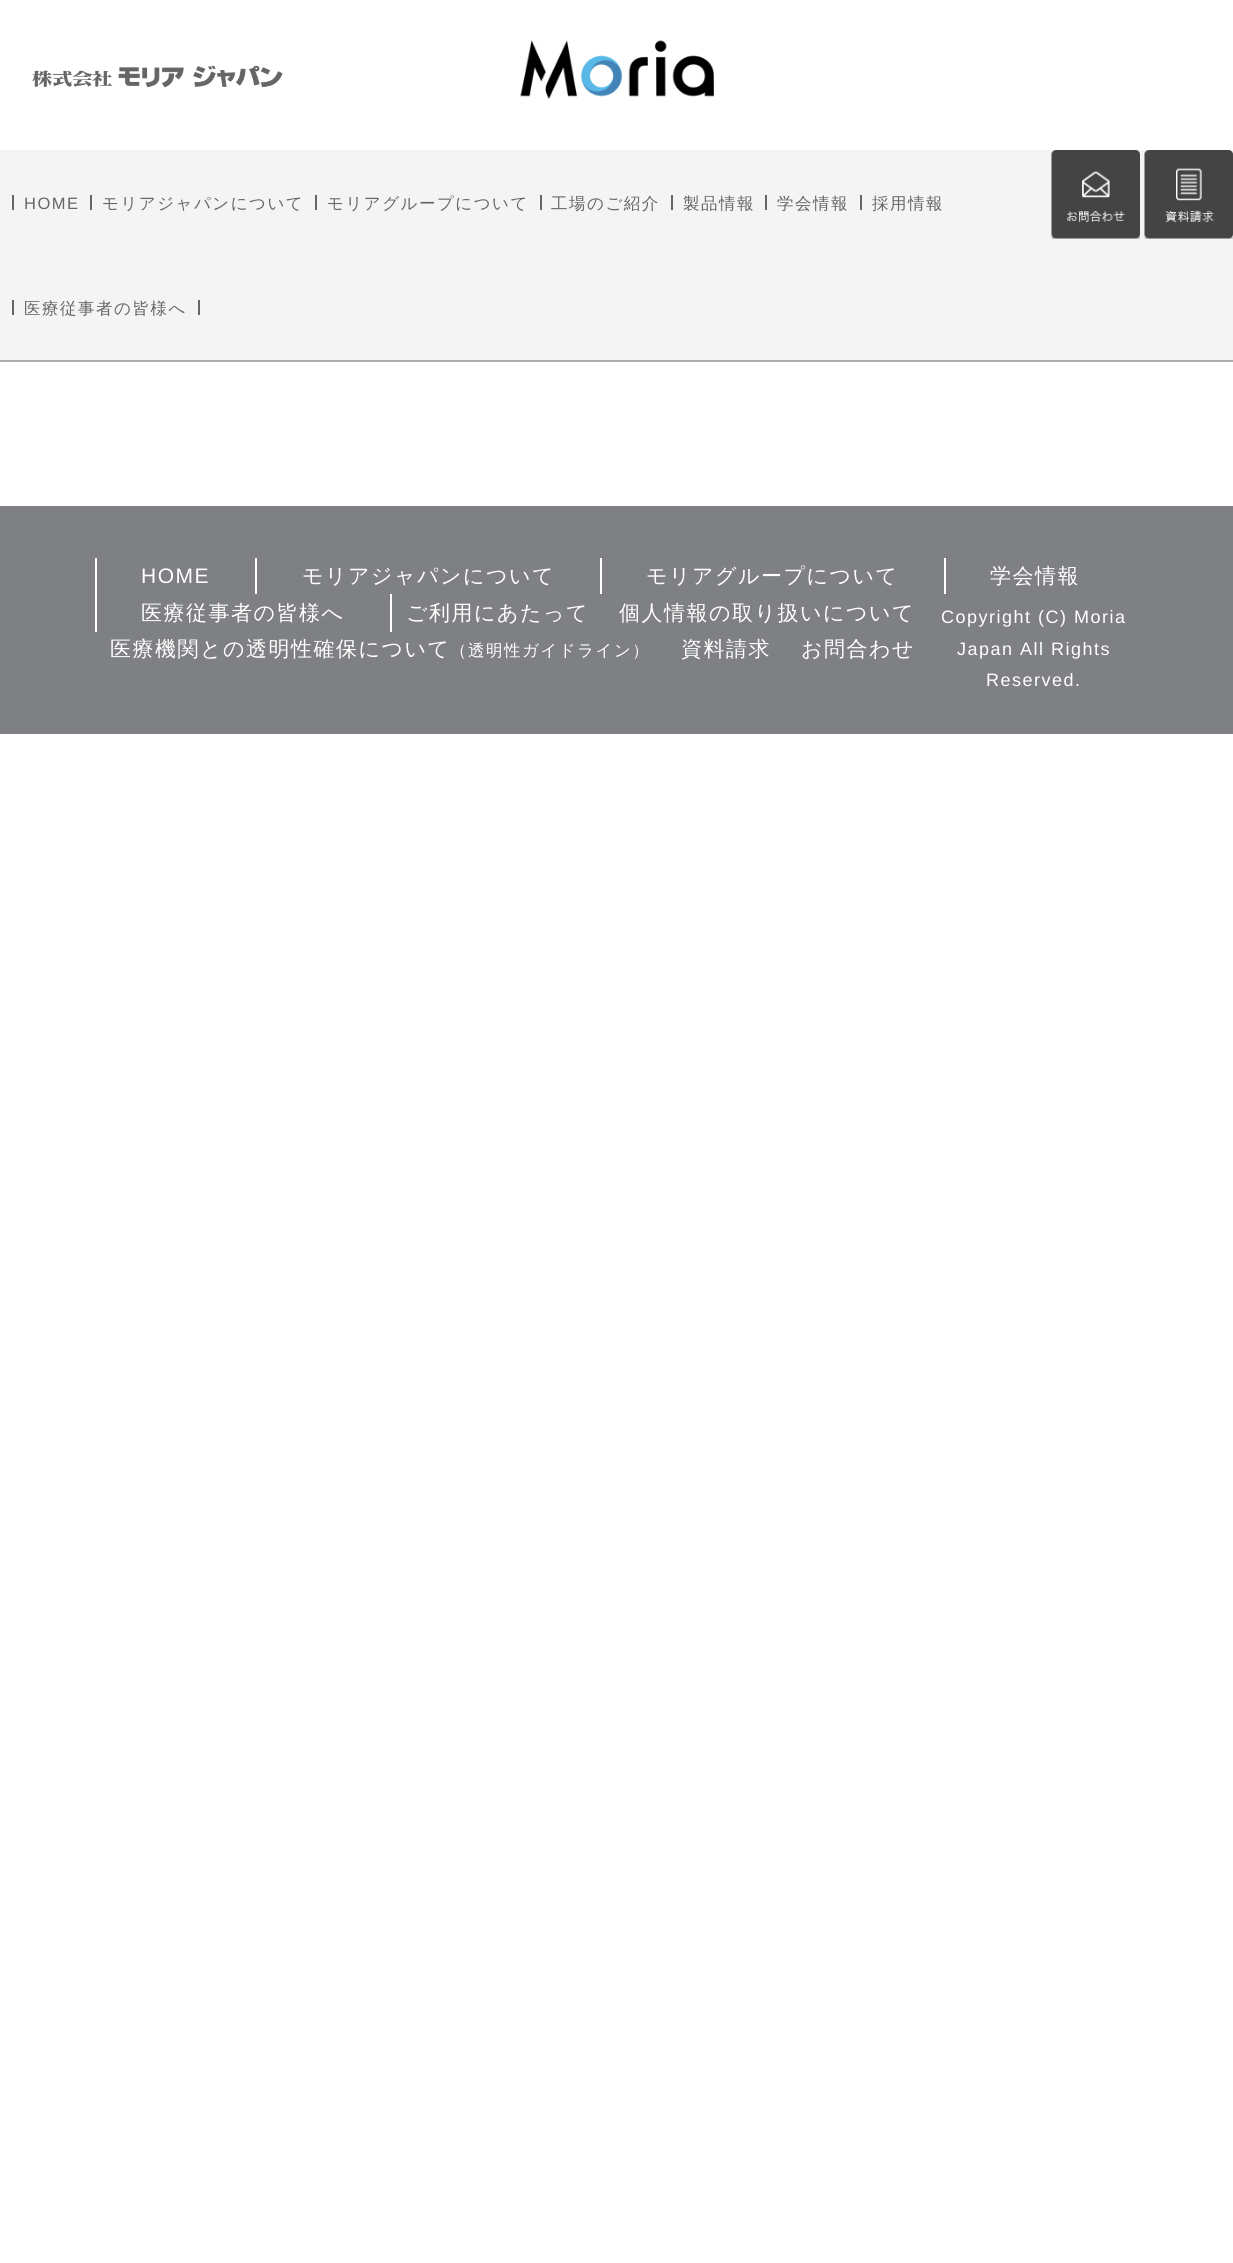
#include <cairo.h>
#include <math.h>
#include <stddef.h>


static void rgb(cairo_t *cr, int r, int g, int b)
{
	cairo_set_source_rgb(cr, r / 255.0, g / 255.0, b / 255.0);
}

static void face(cairo_t *cr, const char *family, double size, int italic, int bold)
{
	cairo_select_font_face(cr, family, italic ? CAIRO_FONT_SLANT_ITALIC : CAIRO_FONT_SLANT_NORMAL,
		bold ? CAIRO_FONT_WEIGHT_BOLD : CAIRO_FONT_WEIGHT_NORMAL);
	cairo_set_font_size(cr, size);
}

static void tracked(cairo_t *cr, double x, double y, const char *s, double letter, double word)
{
	cairo_move_to(cr, x, y);
	while (*s) {
		char ch[5] = {0};
		int n = 0;
		do ch[n++] = *s++; while ((*s & 0xC0) == 0x80);
		cairo_show_text(cr, ch);
		cairo_rel_move_to(cr, letter + word * (*ch == ' '), 0);
	}
}

static void rect(cairo_t *cr, double x, double y, double w, double h)
{
	cairo_rectangle(cr, x, y, w, h);
	cairo_fill(cr);
}

static void image(cairo_t *cr, const char *path, double x, double y, double w, double h)
{
	cairo_surface_t *image = cairo_image_surface_create_from_png(path);
	cairo_save(cr);
	cairo_set_source_surface(cr, image, x, y);
	cairo_rectangle(cr, x, y, w, h);
	cairo_fill(cr);
	cairo_restore(cr);
	cairo_surface_destroy(image);
}

static void draw(cairo_t *cr) {
	rgb(cr, 255, 255, 255);
	cairo_paint(cr);
	image(cr, "image0.png", 32, 65, 251, 23);
	image(cr, "image1.png", 520, 40, 194, 59);
	rgb(cr, 244, 244, 244);
	rect(cr, 0, 150, 1233, 210);
	rgb(cr, 174, 174, 174);
	rect(cr, 0, 360, 1233, 2);
	rgb(cr, 102, 102, 102);
	rect(cr, 12, 195, 2, 15);
	face(cr, "Liberation Sans", 16.5, 0, 0);
	tracked(cr, 24, 209, "HOME", 1.5, 0);
	rect(cr, 90, 195, 2, 15);
	face(cr, "WenQuanYi Zen Hei Medium", 16.5, 0, 0);
	tracked(cr, 102, 209, "モリアジャパンについて", 1.5, 0);
	rect(cr, 315, 195, 2, 15);
	tracked(cr, 327, 209, "モリアグループについて", 1.5, 0);
	rect(cr, 540, 195, 2, 15);
	tracked(cr, 551, 209, "工場のご紹介", 1.5, 0);
	rect(cr, 671, 195, 2, 15);
	tracked(cr, 683, 209, "製品情報", 1.5, 0);
	rect(cr, 765, 195, 2, 15);
	tracked(cr, 777, 209, "学会情報", 1.5, 0);
	rect(cr, 860, 195, 2, 15);
	tracked(cr, 872, 209, "採用情報", 1.5, 0);
	rect(cr, 198, 300, 2, 15);
	rect(cr, 12, 300, 2, 15);
	tracked(cr, 24, 314, "医療従事者の皆様へ", 1.5, 0);
	image(cr, "image2.png", 1051, 150, 89, 89);
	image(cr, "image3.png", 1144, 150, 89, 89);
	rgb(cr, 126, 128, 131);
	rect(cr, 0, 506, 1233, 228);
	rgb(cr, 255, 255, 255);
	rect(cr, 95, 558, 2, 74);
	face(cr, "Liberation Sans", 21, 0, 0);
	tracked(cr, 141, 583, "HOME", 1.5, 0);
	rect(cr, 255, 558, 2, 36);
	face(cr, "WenQuanYi Zen Hei Medium", 21, 0, 0);
	tracked(cr, 302, 583, "モリアジャパンについて", 1.5, 0);
	rect(cr, 600, 558, 2, 36);
	tracked(cr, 646, 583, "モリアグループについて", 1.5, 0);
	rect(cr, 944, 558, 2, 36);
	tracked(cr, 990, 583, "学会情報", 1.5, 0);
	rect(cr, 390, 594, 2, 38);
	tracked(cr, 141, 620, "医療従事者の皆様へ", 1.5, 0);
	tracked(cr, 406, 620, "ご利用にあたって", 1.5, 0);
	tracked(cr, 619, 620, "個人情報の取り扱いについて", 1.5, 0);
	tracked(cr, 110, 656, "医療機関との透明性確保について", 1.5, 0);
	face(cr, "WenQuanYi Zen Hei Medium", 16.5, 0, 0);
	tracked(cr, 450, 656, "（透明性ガイドライン）", 1.5, 0);
	face(cr, "WenQuanYi Zen Hei Medium", 21, 0, 0);
	tracked(cr, 681, 656, "資料請求", 1.5, 0);
	tracked(cr, 801, 656, "お問合わせ", 1.5, 0);
	face(cr, "Liberation Sans", 18, 0, 0);
	tracked(cr, 941, 623, "Copyright (C) Moria", 1.5, 0);
	tracked(cr, 957, 655, "Japan All Rights", 1.5, 0);
	tracked(cr, 986, 686, "Reserved.", 1.5, 0);
}

int main(void) {
	cairo_surface_t *surface = cairo_image_surface_create(CAIRO_FORMAT_RGB24, 1233, 2263);
	cairo_t *cr = cairo_create(surface);
	cairo_font_options_t *options = cairo_font_options_create();
	cairo_font_options_set_hint_metrics(options, CAIRO_HINT_METRICS_OFF);
	cairo_font_options_set_hint_style(options, CAIRO_HINT_STYLE_NONE);
	cairo_set_font_options(cr, options);
	cairo_set_miter_limit(cr, 4);
	draw(cr);
	cairo_surface_write_to_png(surface, "render.png");
	cairo_font_options_destroy(options);
	cairo_destroy(cr);
	cairo_surface_destroy(surface);
	return 0;
}
